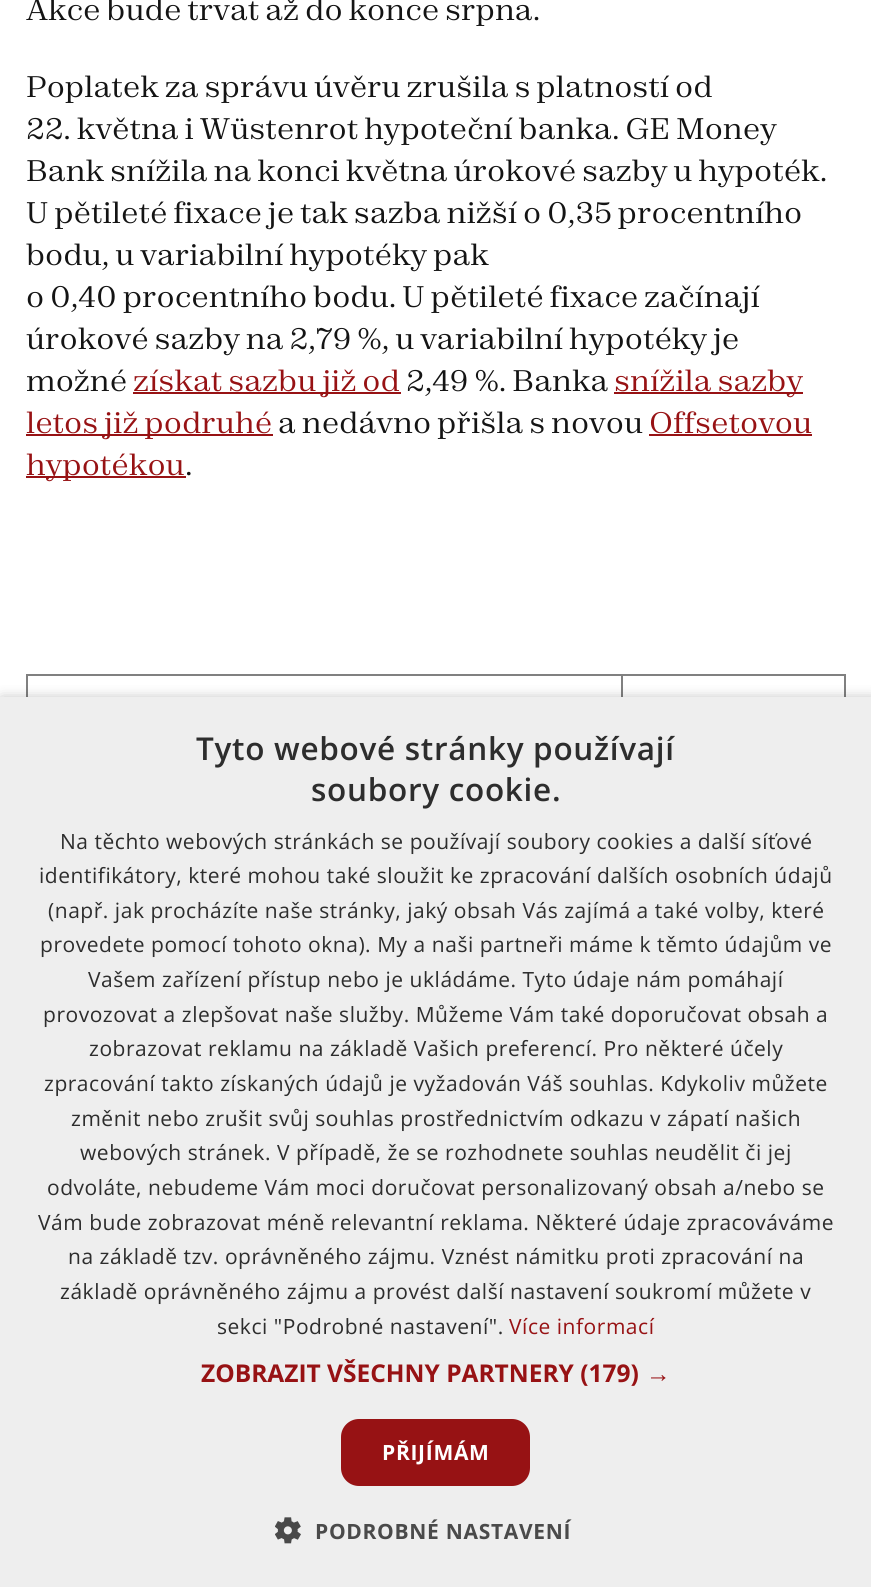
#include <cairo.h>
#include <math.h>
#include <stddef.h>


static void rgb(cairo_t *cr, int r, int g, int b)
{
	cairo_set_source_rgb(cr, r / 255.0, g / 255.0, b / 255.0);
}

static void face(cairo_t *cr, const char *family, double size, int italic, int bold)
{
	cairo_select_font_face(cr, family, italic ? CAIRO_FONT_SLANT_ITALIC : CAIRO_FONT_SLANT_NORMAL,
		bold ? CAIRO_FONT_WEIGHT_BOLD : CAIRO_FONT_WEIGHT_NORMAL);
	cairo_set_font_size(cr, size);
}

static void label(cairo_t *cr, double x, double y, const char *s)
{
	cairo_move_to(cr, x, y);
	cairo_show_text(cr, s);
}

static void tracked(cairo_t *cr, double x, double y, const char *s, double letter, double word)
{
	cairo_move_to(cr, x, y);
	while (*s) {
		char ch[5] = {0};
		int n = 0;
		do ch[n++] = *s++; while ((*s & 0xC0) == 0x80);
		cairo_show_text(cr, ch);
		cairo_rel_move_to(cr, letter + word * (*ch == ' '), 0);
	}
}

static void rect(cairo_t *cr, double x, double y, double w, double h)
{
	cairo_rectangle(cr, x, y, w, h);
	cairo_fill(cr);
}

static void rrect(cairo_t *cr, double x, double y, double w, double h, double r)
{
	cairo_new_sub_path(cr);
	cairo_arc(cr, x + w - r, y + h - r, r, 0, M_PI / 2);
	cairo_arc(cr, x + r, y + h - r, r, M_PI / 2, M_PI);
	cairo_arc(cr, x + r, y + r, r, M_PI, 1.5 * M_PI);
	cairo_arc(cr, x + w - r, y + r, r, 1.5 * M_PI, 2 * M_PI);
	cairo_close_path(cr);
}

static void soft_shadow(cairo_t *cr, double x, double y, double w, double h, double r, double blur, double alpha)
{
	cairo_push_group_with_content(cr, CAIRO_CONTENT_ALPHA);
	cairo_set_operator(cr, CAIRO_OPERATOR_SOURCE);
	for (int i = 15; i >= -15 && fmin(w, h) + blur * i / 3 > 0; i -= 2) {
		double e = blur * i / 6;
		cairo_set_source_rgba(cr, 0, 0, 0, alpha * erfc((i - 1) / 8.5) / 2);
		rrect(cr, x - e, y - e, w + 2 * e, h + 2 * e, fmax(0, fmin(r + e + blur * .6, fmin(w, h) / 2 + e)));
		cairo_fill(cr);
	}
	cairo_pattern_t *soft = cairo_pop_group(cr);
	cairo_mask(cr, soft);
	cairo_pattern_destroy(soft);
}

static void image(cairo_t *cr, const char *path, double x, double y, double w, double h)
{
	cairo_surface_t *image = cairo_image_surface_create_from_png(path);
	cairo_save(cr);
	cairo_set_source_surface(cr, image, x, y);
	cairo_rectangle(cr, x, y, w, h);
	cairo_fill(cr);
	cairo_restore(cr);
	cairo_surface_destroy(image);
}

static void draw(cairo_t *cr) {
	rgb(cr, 255, 255, 255);
	cairo_paint(cr);
	face(cr, "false", 29.75, 0, 0);
	rgb(cr, 20, 20, 20);
	label(cr, 26, 20, "Akce bude trvat až do konce srpna.");
	label(cr, 26, 97, "Poplatek za správu úvěru zrušila s platností od");
	label(cr, 26, 139, "22. května i Wüstenrot hypoteční banka. GE Money");
	label(cr, 26, 181, "Bank snížila na konci května úrokové sazby u hypoték.");
	label(cr, 26, 223, "U pětileté fixace je tak sazba nižší o 0,35 procentního");
	label(cr, 26, 265, "bodu, u variabilní hypotéky pak");
	label(cr, 26, 307, "o 0,40 procentního bodu. U pětileté fixace začínají");
	label(cr, 26, 349, "úrokové sazby na 2,79 %, u variabilní hypotéky je");
	label(cr, 26, 391, "možné");
	rgb(cr, 151, 18, 20);
	rect(cr, 133, 392, 268, 2);
	label(cr, 133, 391, "získat sazbu již od");
	rgb(cr, 20, 20, 20);
	label(cr, 406, 391, "2,49 %. Banka");
	rgb(cr, 151, 18, 20);
	rect(cr, 614, 392, 189, 2);
	label(cr, 614, 391, "snížila sazby");
	rect(cr, 26, 434, 247, 2);
	label(cr, 26, 433, "letos již podruhé");
	rgb(cr, 20, 20, 20);
	label(cr, 278, 433, "a nedávno přišla s novou");
	rgb(cr, 151, 18, 20);
	label(cr, 649, 433, "Offsetovou");
	rect(cr, 649, 434, 163, 2);
	rect(cr, 26, 476, 160, 2);
	label(cr, 26, 475, "hypotékou");
	rgb(cr, 20, 20, 20);
	label(cr, 185, 475, ".");
	rgb(cr, 128, 128, 128);
	rect(cr, 26, 674, 819, 2);
	rect(cr, 844, 674, 2, 23);
	rect(cr, 26, 674, 2, 23);
	rect(cr, 621, 674, 2, 23);
	rgb(cr, 0, 0, 0);
	soft_shadow(cr, 2, 700, 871, 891, 0, 7, 0.35);
	rgb(cr, 238, 238, 238);
	rect(cr, 0, 697, 871, 890);
	face(cr, "Open Sans SemiBold", 31.5, 0, 0);
	rgb(cr, 45, 45, 45);
	tracked(cr, 196, 760, "Tyto webové stránky používají", 0.7, 0);
	tracked(cr, 311, 801, "soubory cookie.", 0.7, 0);
	face(cr, "Open Sans", 21, 0, 0);
	tracked(cr, 60, 849, "Na těchto webových stránkách se používají soubory cookies a další síťové", 0.53, 0);
	tracked(cr, 39, 883, "identifikátory, které mohou také sloužit ke zpracování dalších osobních údajů", 0.53, 0);
	tracked(cr, 48, 918, "(např. jak procházíte naše stránky, jaký obsah Vás zajímá a také volby, které", 0.53, 0);
	tracked(cr, 40, 952, "provedete pomocí tohoto okna). My a naši partneři máme k těmto údajům ve", 0.53, 0);
	tracked(cr, 88, 987, "Vašem zařízení přístup nebo je ukládáme. Tyto údaje nám pomáhají", 0.53, 0);
	tracked(cr, 43, 1022, "provozovat a zlepšovat naše služby. Můžeme Vám také doporučovat obsah a", 0.53, 0);
	tracked(cr, 89, 1056, "zobrazovat reklamu na základě Vašich preferencí. Pro některé účely", 0.53, 0);
	tracked(cr, 44, 1091, "zpracování takto získaných údajů je vyžadován Váš souhlas. Kdykoliv můžete", 0.53, 0);
	tracked(cr, 71, 1126, "změnit nebo zrušit svůj souhlas prostřednictvím odkazu v zápatí našich", 0.53, 0);
	tracked(cr, 80, 1160, "webových stránek. V případě, že se rozhodnete souhlas neudělit či jej", 0.53, 0);
	tracked(cr, 47, 1195, "odvoláte, nebudeme Vám moci doručovat personalizovaný obsah a/nebo se", 0.53, 0);
	tracked(cr, 38, 1230, "Vám bude zobrazovat méně relevantní reklama. Některé údaje zpracováváme", 0.53, 0);
	tracked(cr, 68, 1264, "na základě tzv. oprávněného zájmu. Vznést námitku proti zpracování na", 0.53, 0);
	tracked(cr, 60, 1299, "základě oprávněného zájmu a provést další nastavení soukromí můžete v", 0.53, 0);
	tracked(cr, 217, 1334, "sekci \"Podrobné nastavení\".", 0.53, 0);
	rgb(cr, 151, 18, 20);
	tracked(cr, 509, 1334, "Více informací", 0.53, 0);
	face(cr, "Open Sans", 24.5, 0, 1);
	label(cr, 201, 1382, "ZOBRAZIT VŠECHNY PARTNERY (179)");
	face(cr, "Liberation Sans", 24.5, 0, 1);
	label(cr, 646, 1382, "→");
	rrect(cr, 341, 1419, 189, 67, 18);
	cairo_fill(cr);
	face(cr, "Open Sans", 21, 0, 1);
	rgb(cr, 255, 255, 255);
	tracked(cr, 382, 1460, "PŘIJÍMÁM", 0.7, 0);
	image(cr, "image0.png", 275, 1517, 26, 27);
	rgb(cr, 74, 74, 74);
	tracked(cr, 315, 1539, "PODROBNÉ NASTAVENÍ", 0.7, 0);
}

int main(void) {
	cairo_surface_t *surface = cairo_image_surface_create(CAIRO_FORMAT_RGB24, 871, 1587);
	cairo_t *cr = cairo_create(surface);
	cairo_font_options_t *options = cairo_font_options_create();
	cairo_font_options_set_hint_metrics(options, CAIRO_HINT_METRICS_OFF);
	cairo_font_options_set_hint_style(options, CAIRO_HINT_STYLE_NONE);
	cairo_set_font_options(cr, options);
	cairo_set_miter_limit(cr, 4);
	draw(cr);
	cairo_surface_write_to_png(surface, "render.png");
	cairo_font_options_destroy(options);
	cairo_destroy(cr);
	cairo_surface_destroy(surface);
	return 0;
}
